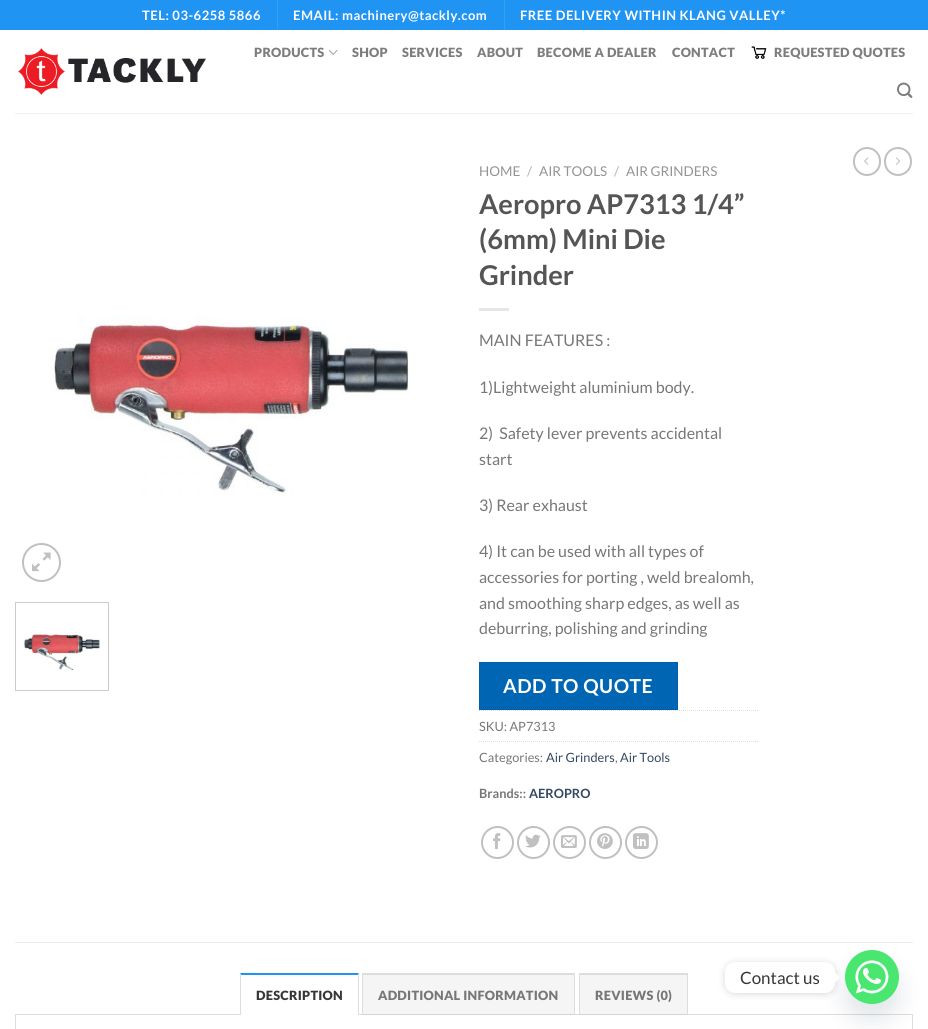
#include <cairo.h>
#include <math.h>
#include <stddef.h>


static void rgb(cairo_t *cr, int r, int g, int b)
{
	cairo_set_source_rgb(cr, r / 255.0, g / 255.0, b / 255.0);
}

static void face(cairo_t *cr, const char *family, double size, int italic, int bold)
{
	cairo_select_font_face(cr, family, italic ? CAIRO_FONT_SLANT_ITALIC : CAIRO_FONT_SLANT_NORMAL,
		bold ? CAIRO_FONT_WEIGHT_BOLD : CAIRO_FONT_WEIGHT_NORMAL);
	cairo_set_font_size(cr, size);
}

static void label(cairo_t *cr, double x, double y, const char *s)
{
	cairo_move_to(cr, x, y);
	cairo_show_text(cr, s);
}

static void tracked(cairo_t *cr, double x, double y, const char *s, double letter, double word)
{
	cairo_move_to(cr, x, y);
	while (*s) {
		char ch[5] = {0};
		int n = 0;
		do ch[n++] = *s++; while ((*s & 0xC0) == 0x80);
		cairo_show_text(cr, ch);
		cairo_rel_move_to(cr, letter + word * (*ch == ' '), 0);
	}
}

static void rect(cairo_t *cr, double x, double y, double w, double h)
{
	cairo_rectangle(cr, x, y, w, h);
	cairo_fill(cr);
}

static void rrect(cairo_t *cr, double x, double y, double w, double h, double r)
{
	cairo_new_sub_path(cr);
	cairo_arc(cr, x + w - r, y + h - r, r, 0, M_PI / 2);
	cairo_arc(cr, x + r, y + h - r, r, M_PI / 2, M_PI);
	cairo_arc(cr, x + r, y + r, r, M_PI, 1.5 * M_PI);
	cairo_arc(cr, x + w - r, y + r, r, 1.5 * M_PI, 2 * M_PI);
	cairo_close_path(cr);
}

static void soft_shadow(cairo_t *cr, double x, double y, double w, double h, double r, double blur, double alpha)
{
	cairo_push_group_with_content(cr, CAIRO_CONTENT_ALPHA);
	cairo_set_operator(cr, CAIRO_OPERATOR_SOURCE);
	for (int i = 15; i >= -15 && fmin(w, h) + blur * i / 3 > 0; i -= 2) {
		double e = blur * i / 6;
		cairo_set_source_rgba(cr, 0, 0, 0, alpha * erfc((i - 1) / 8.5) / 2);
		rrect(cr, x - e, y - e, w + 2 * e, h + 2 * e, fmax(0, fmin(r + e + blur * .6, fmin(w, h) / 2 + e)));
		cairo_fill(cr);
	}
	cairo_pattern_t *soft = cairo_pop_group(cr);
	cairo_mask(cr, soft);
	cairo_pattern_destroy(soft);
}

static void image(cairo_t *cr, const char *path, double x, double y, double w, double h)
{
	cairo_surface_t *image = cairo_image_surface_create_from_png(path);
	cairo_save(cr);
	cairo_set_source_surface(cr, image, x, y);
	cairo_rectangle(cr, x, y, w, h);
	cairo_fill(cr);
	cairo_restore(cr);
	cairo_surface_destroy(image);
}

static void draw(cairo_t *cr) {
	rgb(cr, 255, 255, 255);
	cairo_paint(cr);
	rgb(cr, 32, 148, 243);
	rect(cr, 0, 0, 928, 30);
	face(cr, "Lato", 13, 0, 1);
	rgb(cr, 255, 255, 255);
	tracked(cr, 142, 20, "TEL: 03-6258 5866", 0.5, 0);
	rgb(cr, 54, 159, 244);
	rect(cr, 277, 0, 1, 30);
	rgb(cr, 255, 255, 255);
	tracked(cr, 293, 20, "EMAIL: machinery@tackly.com", 0.5, 0);
	rgb(cr, 54, 159, 244);
	rect(cr, 504, 0, 1, 30);
	rgb(cr, 255, 255, 255);
	tracked(cr, 520, 20, "FREE DELIVERY WITHIN KLANG VALLEY*", 0.5, 0);
	image(cr, "image0.png", 18, 48, 189, 47);
	face(cr, "Lato Black", 12.75, 0, 0);
	rgb(cr, 125, 125, 125);
	tracked(cr, 254, 57, "PRODUCTS", 0.25, 0);
	image(cr, "image1.png", 328, 49, 10, 6);
	tracked(cr, 352, 57, "SHOP", 0.25, 0);
	tracked(cr, 402, 57, "SERVICES", 0.25, 0);
	tracked(cr, 477, 57, "ABOUT", 0.25, 0);
	tracked(cr, 537, 57, "BECOME A DEALER", 0.25, 0);
	tracked(cr, 672, 57, "CONTACT", 0.25, 0);
	image(cr, "image2.png", 751, 46, 16, 13);
	tracked(cr, 774, 57, "REQUESTED QUOTES", 0.25, 0);
	image(cr, "image3.png", 897, 82, 16, 16);
	rgb(cr, 241, 241, 241);
	rect(cr, 15, 113, 898, 1);
	rrect(cr, 854, 148, 26, 27, 13);
	rgb(cr, 192, 192, 192);
	cairo_stroke(cr);
	image(cr, "image4.png", 864, 157, 5, 8);
	rrect(cr, 885, 148, 26, 27, 13);
	cairo_stroke(cr);
	image(cr, "image5.png", 896, 157, 4, 8);
	image(cr, "image6.png", 50, 315, 359, 182);
	cairo_arc(cr, 41.5, 562.5, 18.5, 0, 2 * M_PI);
	cairo_stroke(cr);
	image(cr, "image7.png", 32, 552, 19, 20);
	cairo_rectangle(cr, 15.5, 602.5, 93, 88);
	rgb(cr, 204, 204, 204);
	cairo_set_line_width(cr, 1);
	cairo_stroke(cr);
	image(cr, "image8.png", 23, 632, 77, 39);
	face(cr, "Lato", 13.5, 0, 0);
	rgb(cr, 148, 148, 148);
	label(cr, 479, 176, "HOME");
	rgb(cr, 178, 178, 178);
	label(cr, 527, 176, "/");
	rgb(cr, 148, 148, 148);
	label(cr, 539, 176, "AIR TOOLS");
	rgb(cr, 178, 178, 178);
	label(cr, 614, 176, "/");
	rgb(cr, 148, 148, 148);
	label(cr, 626, 176, "AIR GRINDERS");
	face(cr, "Lato", 27.25, 0, 1);
	rgb(cr, 85, 85, 85);
	label(cr, 479, 214, "Aeropro AP7313 1/4”");
	label(cr, 479, 249, "(6mm) Mini Die");
	label(cr, 479, 285, "Grinder");
	rgb(cr, 230, 230, 230);
	rect(cr, 479, 308, 30, 3);
	face(cr, "Lato", 16, 0, 0);
	rgb(cr, 119, 119, 119);
	label(cr, 479, 346, "MAIN FEATURES :");
	label(cr, 479, 393, "1)Lightweight aluminium body.");
	label(cr, 479, 439, "2)  Safety lever prevents accidental");
	label(cr, 479, 465, "start");
	label(cr, 479, 511, "3) Rear exhaust");
	label(cr, 479, 557, "4) It can be used with all types of");
	label(cr, 479, 583, "accessories for porting , weld brealomh,");
	label(cr, 479, 609, "and smoothing sharp edges, as well as");
	label(cr, 479, 634, "deburring, polishing and grinding");
	rgb(cr, 0, 102, 180);
	cairo_rectangle(cr, 479.5, 662.5, 198, 47);
	cairo_fill_preserve(cr);
	rgb(cr, 0, 97, 171);
	cairo_stroke(cr);
	face(cr, "Lato", 19.25, 0, 1);
	rgb(cr, 255, 255, 255);
	tracked(cr, 503, 693, "ADD TO QUOTE", 0.5, 0);
	cairo_new_path(cr);
	cairo_move_to(cr, 479, 710.5);
	cairo_line_to(cr, 758, 710.5);
	rgb(cr, 221, 221, 221);
	cairo_set_dash(cr, (double[]){1, 1}, 2, 0);
	cairo_stroke(cr);
	face(cr, "Lato", 12.75, 0, 0);
	rgb(cr, 119, 119, 119);
	label(cr, 479, 731, "SKU: AP7313");
	cairo_new_path(cr);
	cairo_move_to(cr, 479, 741.5);
	cairo_line_to(cr, 758, 741.5);
	rgb(cr, 221, 221, 221);
	cairo_stroke(cr);
	rgb(cr, 119, 119, 119);
	label(cr, 479, 762, "Categories:");
	rgb(cr, 51, 72, 98);
	label(cr, 546, 762, "Air Grinders");
	rgb(cr, 119, 119, 119);
	label(cr, 615, 762, ",");
	rgb(cr, 51, 72, 98);
	label(cr, 620, 762, "Air Tools");
	face(cr, "Lato", 12.75, 0, 1);
	rgb(cr, 119, 119, 119);
	label(cr, 479, 798, "Brands::");
	rgb(cr, 51, 72, 98);
	label(cr, 529, 798, "AEROPRO");
	cairo_new_path(cr);
	cairo_arc(cr, 497.5, 842.5, 15.5, 0, 2 * M_PI);
	rgb(cr, 192, 192, 192);
	cairo_set_line_width(cr, 2);
	cairo_set_dash(cr, NULL, 0, 0);
	cairo_stroke(cr);
	image(cr, "image9.png", 493, 833, 8, 16);
	cairo_arc(cr, 533.5, 842.5, 15.5, 0, 2 * M_PI);
	cairo_stroke(cr);
	image(cr, "image10.png", 525, 834, 16, 14);
	cairo_arc(cr, 569.5, 842.5, 15.5, 0, 2 * M_PI);
	cairo_stroke(cr);
	image(cr, "image11.png", 561, 835, 16, 13);
	cairo_arc(cr, 605.5, 842.5, 15.5, 0, 2 * M_PI);
	cairo_stroke(cr);
	image(cr, "image12.png", 597, 833, 16, 16);
	cairo_arc(cr, 641.5, 842.5, 15.5, 0, 2 * M_PI);
	cairo_stroke(cr);
	image(cr, "image13.png", 633, 833, 16, 16);
	rgb(cr, 236, 236, 236);
	rect(cr, 15, 942, 898, 1);
	cairo_rectangle(cr, 15.5, 1014.5, 897, 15);
	rgb(cr, 221, 221, 221);
	cairo_set_line_width(cr, 1);
	cairo_stroke(cr);
	rgb(cr, 255, 255, 255);
	rect(cr, 240, 1014, 119, 1);
	rgb(cr, 32, 148, 243);
	cairo_new_path(cr);
	cairo_move_to(cr, 240, 973);
	cairo_line_to(cr, 359, 973);
	cairo_line_to(cr, 358, 975);
	cairo_line_to(cr, 241, 975);
	cairo_close_path(cr);
	cairo_fill(cr);
	rgb(cr, 221, 221, 221);
	cairo_new_path(cr);
	cairo_move_to(cr, 359, 973);
	cairo_line_to(cr, 359, 1015);
	cairo_line_to(cr, 358, 1015);
	cairo_line_to(cr, 358, 975);
	cairo_close_path(cr);
	cairo_fill(cr);
	cairo_new_path(cr);
	cairo_move_to(cr, 240, 1015);
	cairo_line_to(cr, 240, 973);
	cairo_line_to(cr, 241, 975);
	cairo_line_to(cr, 241, 1015);
	cairo_close_path(cr);
	cairo_fill(cr);
	face(cr, "Lato Black", 12.75, 0, 0);
	rgb(cr, 54, 54, 54);
	tracked(cr, 256, 1000, "DESCRIPTION", 0.25, 0);
	cairo_set_source_rgba(cr, 0, 0, 0, 0.04);
	rect(cr, 363, 975, 211, 40);
	rgb(cr, 221, 221, 221);
	rect(cr, 362, 973, 213, 2);
	rect(cr, 574, 973, 1, 42);
	rect(cr, 362, 973, 1, 42);
	rgb(cr, 119, 119, 119);
	tracked(cr, 378, 1000, "ADDITIONAL INFORMATION", 0.25, 0);
	cairo_set_source_rgba(cr, 0, 0, 0, 0.04);
	rect(cr, 580, 975, 107, 40);
	rgb(cr, 221, 221, 221);
	rect(cr, 579, 973, 109, 2);
	rect(cr, 687, 973, 1, 42);
	rect(cr, 579, 973, 1, 42);
	rgb(cr, 119, 119, 119);
	tracked(cr, 595, 1000, "REVIEWS (0)", 0.25, 0);
	rgb(cr, 73, 104, 126);
	soft_shadow(cr, 845, 966, 54, 54, 27, 12, 0.16);
	image(cr, "image14.png", 845, 950, 54, 54);
	rgb(cr, 0, 0, 0);
	soft_shadow(cr, 725, 963, 110, 31, 10, 4, 0.15);
	rgb(cr, 255, 255, 255);
	rrect(cr, 725, 962, 110, 31, 10);
	cairo_fill(cr);
	face(cr, "Lato", 17, 0, 0);
	rgb(cr, 54, 54, 54);
	label(cr, 740, 984, "Contact us");
	rgb(cr, 255, 255, 255);
	cairo_new_path(cr);
	cairo_move_to(cr, 835, 982.5);
	cairo_line_to(cr, 835, 972.5);
	cairo_line_to(cr, 840, 977.5);
	cairo_close_path(cr);
	cairo_fill(cr);
}

int main(void) {
	cairo_surface_t *surface = cairo_image_surface_create(CAIRO_FORMAT_RGB24, 928, 1029);
	cairo_t *cr = cairo_create(surface);
	cairo_font_options_t *options = cairo_font_options_create();
	cairo_font_options_set_hint_metrics(options, CAIRO_HINT_METRICS_OFF);
	cairo_font_options_set_hint_style(options, CAIRO_HINT_STYLE_NONE);
	cairo_set_font_options(cr, options);
	cairo_set_miter_limit(cr, 4);
	draw(cr);
	cairo_surface_write_to_png(surface, "render.png");
	cairo_font_options_destroy(options);
	cairo_destroy(cr);
	cairo_surface_destroy(surface);
	return 0;
}
